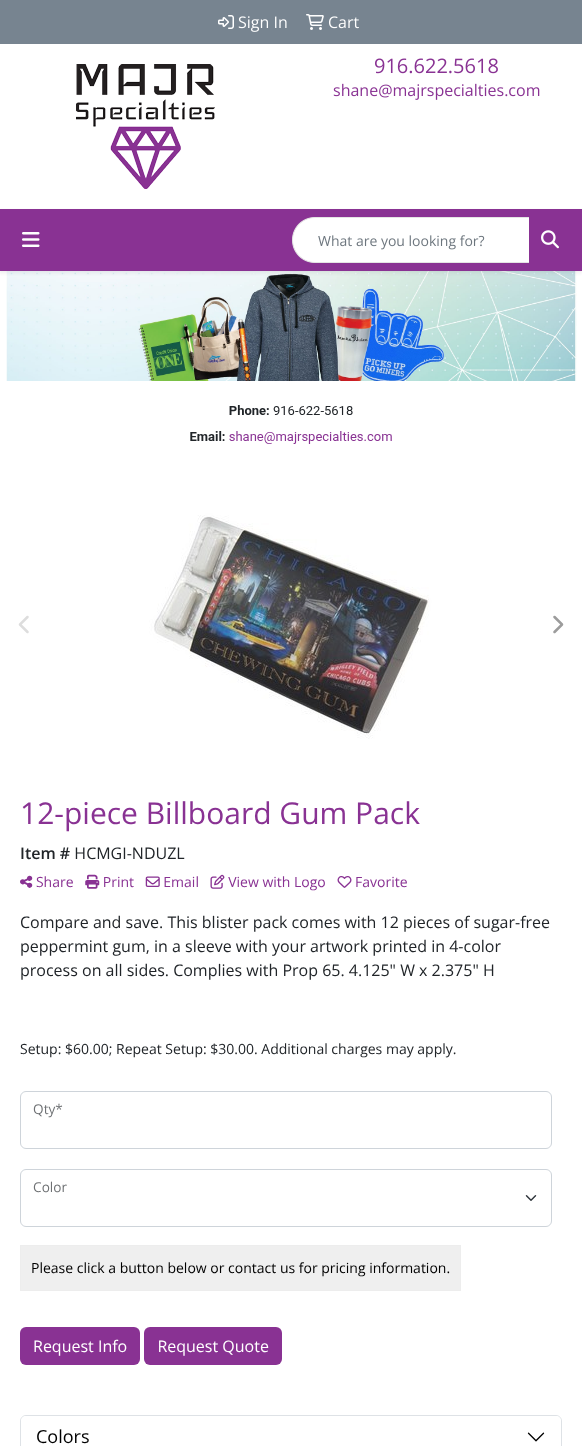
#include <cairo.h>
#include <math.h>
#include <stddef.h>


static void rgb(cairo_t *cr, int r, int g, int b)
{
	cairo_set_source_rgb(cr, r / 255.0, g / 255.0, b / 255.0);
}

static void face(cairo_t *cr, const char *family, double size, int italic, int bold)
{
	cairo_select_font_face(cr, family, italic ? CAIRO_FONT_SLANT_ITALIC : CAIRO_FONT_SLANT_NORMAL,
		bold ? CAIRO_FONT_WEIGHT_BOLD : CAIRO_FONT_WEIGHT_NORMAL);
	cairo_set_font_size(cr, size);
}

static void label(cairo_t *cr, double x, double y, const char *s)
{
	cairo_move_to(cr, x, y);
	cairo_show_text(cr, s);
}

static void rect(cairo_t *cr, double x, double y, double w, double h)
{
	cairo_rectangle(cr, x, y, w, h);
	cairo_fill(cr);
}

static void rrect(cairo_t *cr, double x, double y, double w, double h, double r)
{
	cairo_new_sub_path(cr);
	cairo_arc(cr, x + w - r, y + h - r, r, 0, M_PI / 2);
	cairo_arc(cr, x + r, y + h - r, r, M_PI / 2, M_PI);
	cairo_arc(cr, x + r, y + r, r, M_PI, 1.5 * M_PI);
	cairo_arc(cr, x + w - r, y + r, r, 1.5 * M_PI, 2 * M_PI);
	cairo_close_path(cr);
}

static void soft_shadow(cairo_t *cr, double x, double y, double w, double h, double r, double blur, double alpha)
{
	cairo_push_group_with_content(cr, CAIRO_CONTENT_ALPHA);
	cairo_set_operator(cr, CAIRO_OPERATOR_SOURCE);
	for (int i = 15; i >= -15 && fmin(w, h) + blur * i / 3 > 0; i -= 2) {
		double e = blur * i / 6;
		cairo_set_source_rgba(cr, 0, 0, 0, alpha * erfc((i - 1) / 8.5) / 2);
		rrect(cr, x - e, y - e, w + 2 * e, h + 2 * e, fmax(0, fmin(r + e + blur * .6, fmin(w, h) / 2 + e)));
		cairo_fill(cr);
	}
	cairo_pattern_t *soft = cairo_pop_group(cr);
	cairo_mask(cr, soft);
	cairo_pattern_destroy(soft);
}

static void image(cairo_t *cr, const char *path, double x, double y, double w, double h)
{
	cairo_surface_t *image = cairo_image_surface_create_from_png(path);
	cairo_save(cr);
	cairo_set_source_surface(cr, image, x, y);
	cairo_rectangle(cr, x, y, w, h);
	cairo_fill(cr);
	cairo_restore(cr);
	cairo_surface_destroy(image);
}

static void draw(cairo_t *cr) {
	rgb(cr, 255, 255, 255);
	cairo_paint(cr);
	rgb(cr, 119, 132, 144);
	rect(cr, 0, 0, 582, 44);
	image(cr, "image0.png", 218, 15, 16, 14);
	face(cr, "Open Sans", 16, 0, 0);
	rgb(cr, 255, 255, 255);
	label(cr, 238, 28, "Sign In");
	image(cr, "image1.png", 306, 14, 18, 16);
	label(cr, 328, 28, "Cart");
	image(cr, "image2.png", 76, 64, 139, 125);
	face(cr, "Open Sans", 20, 0, 0);
	rgb(cr, 137, 50, 147);
	label(cr, 374, 73, "916.622.5618");
	face(cr, "Open Sans", 16, 0, 0);
	label(cr, 333, 96, "shane@majrspecialties.com");
	image(cr, "image5.png", 6, 271, 571, 110);
	rgb(cr, 0, 0, 0);
	soft_shadow(cr, 0, 211, 582, 62, 0, 2, 0.07);
	rgb(cr, 137, 50, 147);
	rect(cr, 0, 209, 582, 62);
	image(cr, "image3.png", 22, 232, 18, 15);
	rgb(cr, 255, 255, 255);
	cairo_new_path(cr);
	cairo_move_to(cr, 315, 217.5);
	cairo_line_to(cr, 529.5, 217.5);
	cairo_line_to(cr, 529.5, 262.5);
	cairo_line_to(cr, 315, 262.5);
	cairo_curve_to(cr, 302.5, 262.5, 292.5, 252.5, 292.5, 240);
	cairo_curve_to(cr, 292.5, 227.5, 302.5, 217.5, 315, 217.5);
	cairo_close_path(cr);
	cairo_fill_preserve(cr);
	rgb(cr, 228, 228, 228);
	cairo_set_line_width(cr, 1);
	cairo_stroke(cr);
	face(cr, "Open Sans", 14, 0, 0);
	rgb(cr, 108, 117, 125);
	label(cr, 318, 246, "What are you looking for?");
	rgb(cr, 137, 50, 147);
	cairo_new_path(cr);
	cairo_move_to(cr, 529, 218);
	cairo_line_to(cr, 549, 218);
	cairo_curve_to(cr, 561, 218, 571, 228, 571, 240);
	cairo_curve_to(cr, 571, 252, 561, 262, 549, 262);
	cairo_line_to(cr, 529, 262);
	cairo_close_path(cr);
	cairo_fill(cr);
	cairo_set_fill_rule(cr, CAIRO_FILL_RULE_EVEN_ODD);
	cairo_new_path(cr);
	cairo_move_to(cr, 529, 217);
	cairo_line_to(cr, 549, 217);
	cairo_curve_to(cr, 562, 217, 572, 227, 572, 240);
	cairo_curve_to(cr, 572, 253, 562, 263, 549, 263);
	cairo_line_to(cr, 529, 263);
	cairo_close_path(cr);
	cairo_move_to(cr, 529, 218);
	cairo_line_to(cr, 549, 218);
	cairo_curve_to(cr, 561, 218, 571, 228, 571, 240);
	cairo_curve_to(cr, 571, 252, 561, 262, 549, 262);
	cairo_line_to(cr, 529, 262);
	cairo_close_path(cr);
	cairo_fill(cr);
	image(cr, "image4.png", 541, 230, 18, 19);
	image(cr, "image6.png", 18, 405, 546, 1041);
}

int main(void) {
	cairo_surface_t *surface = cairo_image_surface_create(CAIRO_FORMAT_RGB24, 582, 1446);
	cairo_t *cr = cairo_create(surface);
	cairo_font_options_t *options = cairo_font_options_create();
	cairo_font_options_set_hint_metrics(options, CAIRO_HINT_METRICS_OFF);
	cairo_font_options_set_hint_style(options, CAIRO_HINT_STYLE_NONE);
	cairo_set_font_options(cr, options);
	cairo_set_miter_limit(cr, 4);
	draw(cr);
	cairo_surface_write_to_png(surface, "render.png");
	cairo_font_options_destroy(options);
	cairo_destroy(cr);
	cairo_surface_destroy(surface);
	return 0;
}
